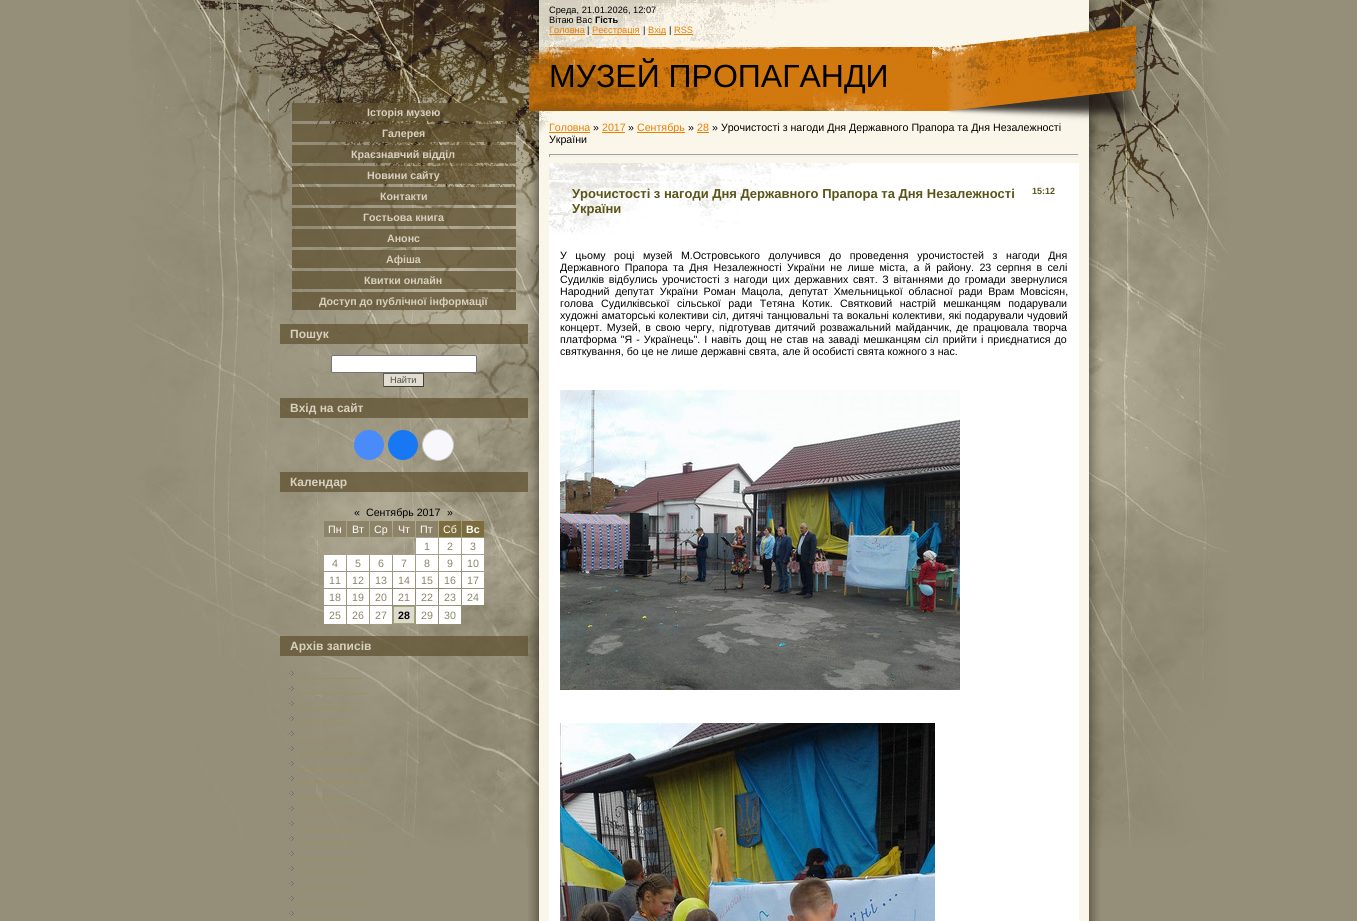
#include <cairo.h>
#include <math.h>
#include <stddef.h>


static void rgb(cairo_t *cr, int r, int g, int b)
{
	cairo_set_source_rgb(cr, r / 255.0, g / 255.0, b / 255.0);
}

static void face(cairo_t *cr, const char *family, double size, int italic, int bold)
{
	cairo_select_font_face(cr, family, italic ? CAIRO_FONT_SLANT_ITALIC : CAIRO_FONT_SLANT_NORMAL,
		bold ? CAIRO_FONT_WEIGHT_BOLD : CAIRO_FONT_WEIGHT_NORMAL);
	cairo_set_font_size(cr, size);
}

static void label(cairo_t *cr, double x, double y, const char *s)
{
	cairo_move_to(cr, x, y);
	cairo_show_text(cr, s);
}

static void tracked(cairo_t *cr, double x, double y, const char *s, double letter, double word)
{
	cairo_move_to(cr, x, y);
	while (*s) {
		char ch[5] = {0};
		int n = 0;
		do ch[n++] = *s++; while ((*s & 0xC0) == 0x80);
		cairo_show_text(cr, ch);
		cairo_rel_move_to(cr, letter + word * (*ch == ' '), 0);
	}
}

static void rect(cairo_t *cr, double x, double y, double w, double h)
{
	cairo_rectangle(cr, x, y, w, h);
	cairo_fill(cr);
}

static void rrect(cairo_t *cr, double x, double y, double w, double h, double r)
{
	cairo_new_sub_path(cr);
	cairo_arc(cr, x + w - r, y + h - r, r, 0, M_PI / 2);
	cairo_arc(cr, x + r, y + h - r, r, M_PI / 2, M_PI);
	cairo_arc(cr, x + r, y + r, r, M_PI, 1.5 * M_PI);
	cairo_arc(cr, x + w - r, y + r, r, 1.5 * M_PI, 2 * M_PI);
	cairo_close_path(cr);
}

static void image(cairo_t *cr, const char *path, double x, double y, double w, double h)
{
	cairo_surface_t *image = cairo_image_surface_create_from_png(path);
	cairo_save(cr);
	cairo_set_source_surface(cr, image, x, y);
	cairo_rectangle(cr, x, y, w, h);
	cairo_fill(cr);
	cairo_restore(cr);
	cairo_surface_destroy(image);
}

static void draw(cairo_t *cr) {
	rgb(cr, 149, 142, 120);
	cairo_paint(cr);
	image(cr, "image0.png", 528, 848, 572, 73);
	image(cr, "image1.png", 129, 0, 1100, 848);
	cairo_set_source_rgba(cr, 0.376, 0.322, 0.196, 0.75);
	rect(cr, 292, 103, 224, 18);
	face(cr, "Liberation Sans", 10.65, 0, 1);
	rgb(cr, 216, 209, 191);
	label(cr, 367, 116, "Історія музею");
	cairo_set_source_rgba(cr, 0.376, 0.322, 0.196, 0.75);
	rect(cr, 292, 124, 224, 18);
	rgb(cr, 216, 209, 191);
	label(cr, 382, 137, "Галерея");
	cairo_set_source_rgba(cr, 0.376, 0.322, 0.196, 0.75);
	rect(cr, 292, 145, 224, 18);
	rgb(cr, 216, 209, 191);
	label(cr, 351, 158, "Краєзнавчий відділ");
	cairo_set_source_rgba(cr, 0.376, 0.322, 0.196, 0.75);
	rect(cr, 292, 166, 224, 18);
	rgb(cr, 216, 209, 191);
	label(cr, 367, 179, "Новини сайту");
	cairo_set_source_rgba(cr, 0.376, 0.322, 0.196, 0.75);
	rect(cr, 292, 187, 224, 18);
	rgb(cr, 216, 209, 191);
	label(cr, 380, 200, "Контакти");
	cairo_set_source_rgba(cr, 0.376, 0.322, 0.196, 0.75);
	rect(cr, 292, 208, 224, 18);
	rgb(cr, 216, 209, 191);
	label(cr, 363, 221, "Гостьова книга");
	cairo_set_source_rgba(cr, 0.376, 0.322, 0.196, 0.75);
	rect(cr, 292, 229, 224, 18);
	rgb(cr, 216, 209, 191);
	label(cr, 387, 242, "Анонс");
	cairo_set_source_rgba(cr, 0.376, 0.322, 0.196, 0.75);
	rect(cr, 292, 250, 224, 18);
	rgb(cr, 216, 209, 191);
	label(cr, 386, 263, "Афіша");
	cairo_set_source_rgba(cr, 0.376, 0.322, 0.196, 0.75);
	rect(cr, 292, 271, 224, 18);
	rgb(cr, 216, 209, 191);
	label(cr, 364, 284, "Квитки онлайн");
	cairo_set_source_rgba(cr, 0.376, 0.322, 0.196, 0.75);
	rect(cr, 292, 292, 224, 18);
	rgb(cr, 216, 209, 191);
	label(cr, 319, 305, "Доступ до публічної інформації");
	cairo_set_source_rgba(cr, 0.376, 0.322, 0.196, 0.75);
	rect(cr, 280, 324, 248, 20);
	face(cr, "Liberation Sans", 12, 0, 1);
	rgb(cr, 216, 209, 191);
	label(cr, 290, 338, "Пошук");
	rgb(cr, 255, 255, 255);
	rrect(cr, 331.5, 355.5, 145, 17, 1.5);
	cairo_fill_preserve(cr);
	rgb(cr, 118, 118, 118);
	cairo_set_line_width(cr, 1);
	cairo_stroke(cr);
	rgb(cr, 226, 221, 209);
	rect(cr, 384, 374, 39, 12);
	rgb(cr, 97, 94, 88);
	rect(cr, 383, 373, 41, 1);
	rgb(cr, 65, 63, 59);
	rect(cr, 423, 373, 1, 14);
	rect(cr, 383, 386, 41, 1);
	rgb(cr, 97, 94, 88);
	rect(cr, 383, 373, 1, 14);
	face(cr, "Liberation Sans", 9.25, 0, 0);
	rgb(cr, 79, 77, 72);
	label(cr, 390, 383, "Найти");
	cairo_set_source_rgba(cr, 0.376, 0.322, 0.196, 0.75);
	rect(cr, 280, 398, 248, 20);
	face(cr, "Liberation Sans", 12, 0, 1);
	rgb(cr, 216, 209, 191);
	label(cr, 290, 412, "Вхід на сайт");
	rgb(cr, 73, 139, 250);
	cairo_new_path(cr);
	cairo_arc(cr, 369, 445, 15, 0, 2 * M_PI);
	cairo_fill(cr);
	rgb(cr, 24, 119, 242);
	cairo_arc(cr, 403, 445, 15, 0, 2 * M_PI);
	cairo_fill(cr);
	rgb(cr, 248, 248, 252);
	cairo_arc(cr, 438, 445, 15.5, 0, 2 * M_PI);
	cairo_fill_preserve(cr);
	rgb(cr, 196, 196, 196);
	cairo_stroke(cr);
	cairo_set_source_rgba(cr, 0.376, 0.322, 0.196, 0.75);
	rect(cr, 280, 472, 248, 20);
	rgb(cr, 216, 209, 191);
	label(cr, 290, 486, "Календар");
	face(cr, "Liberation Sans", 10.65, 0, 0);
	rgb(cr, 0, 0, 0);
	label(cr, 354, 516, "«");
	label(cr, 366, 516, "Сентябрь 2017");
	label(cr, 447, 516, "»");
	rgb(cr, 140, 131, 104);
	rect(cr, 324, 521, 22, 16);
	rgb(cr, 255, 255, 255);
	label(cr, 328, 533, "Пн");
	rgb(cr, 140, 131, 104);
	rect(cr, 347, 521, 22, 16);
	rgb(cr, 255, 255, 255);
	label(cr, 352, 533, "Вт");
	rgb(cr, 140, 131, 104);
	rect(cr, 370, 521, 22, 16);
	rgb(cr, 255, 255, 255);
	label(cr, 374, 533, "Ср");
	rgb(cr, 140, 131, 104);
	rect(cr, 393, 521, 22, 16);
	rgb(cr, 255, 255, 255);
	label(cr, 398, 533, "Чт");
	rgb(cr, 140, 131, 104);
	rect(cr, 416, 521, 22, 16);
	rgb(cr, 255, 255, 255);
	label(cr, 420, 533, "Пт");
	rgb(cr, 125, 109, 60);
	rect(cr, 439, 521, 22, 16);
	rgb(cr, 255, 255, 255);
	label(cr, 443, 533, "Сб");
	rgb(cr, 125, 109, 60);
	rect(cr, 462, 521, 22, 16);
	face(cr, "Liberation Sans", 10.65, 0, 1);
	rgb(cr, 255, 255, 255);
	label(cr, 466, 533, "Вс");
	rect(cr, 416, 538, 22, 16);
	face(cr, "Liberation Sans", 10.65, 0, 0);
	rgb(cr, 140, 131, 104);
	label(cr, 424, 550, "1");
	rgb(cr, 255, 255, 255);
	rect(cr, 439, 538, 22, 16);
	rgb(cr, 140, 131, 104);
	label(cr, 447, 550, "2");
	rgb(cr, 255, 255, 255);
	rect(cr, 462, 538, 22, 16);
	rgb(cr, 140, 131, 104);
	label(cr, 470, 550, "3");
	rgb(cr, 255, 255, 255);
	rect(cr, 324, 555, 22, 16);
	rgb(cr, 140, 131, 104);
	label(cr, 332, 567, "4");
	rgb(cr, 255, 255, 255);
	rect(cr, 347, 555, 22, 16);
	rgb(cr, 140, 131, 104);
	label(cr, 355, 567, "5");
	rgb(cr, 255, 255, 255);
	rect(cr, 370, 555, 22, 16);
	rgb(cr, 140, 131, 104);
	label(cr, 378, 567, "6");
	rgb(cr, 255, 255, 255);
	rect(cr, 393, 555, 22, 16);
	rgb(cr, 140, 131, 104);
	label(cr, 401, 567, "7");
	rgb(cr, 255, 255, 255);
	rect(cr, 416, 555, 22, 16);
	rgb(cr, 140, 131, 104);
	label(cr, 424, 567, "8");
	rgb(cr, 255, 255, 255);
	rect(cr, 439, 555, 22, 16);
	rgb(cr, 140, 131, 104);
	label(cr, 447, 567, "9");
	rgb(cr, 255, 255, 255);
	rect(cr, 462, 555, 22, 16);
	rgb(cr, 140, 131, 104);
	label(cr, 467, 567, "10");
	rgb(cr, 255, 255, 255);
	rect(cr, 324, 572, 22, 16);
	rgb(cr, 140, 131, 104);
	label(cr, 329, 584, "11");
	rgb(cr, 255, 255, 255);
	rect(cr, 347, 572, 22, 16);
	rgb(cr, 140, 131, 104);
	label(cr, 352, 584, "12");
	rgb(cr, 255, 255, 255);
	rect(cr, 370, 572, 22, 16);
	rgb(cr, 140, 131, 104);
	label(cr, 375, 584, "13");
	rgb(cr, 255, 255, 255);
	rect(cr, 393, 572, 22, 16);
	rgb(cr, 140, 131, 104);
	label(cr, 398, 584, "14");
	rgb(cr, 255, 255, 255);
	rect(cr, 416, 572, 22, 16);
	rgb(cr, 140, 131, 104);
	label(cr, 421, 584, "15");
	rgb(cr, 255, 255, 255);
	rect(cr, 439, 572, 22, 16);
	rgb(cr, 140, 131, 104);
	label(cr, 444, 584, "16");
	rgb(cr, 255, 255, 255);
	rect(cr, 462, 572, 22, 16);
	rgb(cr, 140, 131, 104);
	label(cr, 467, 584, "17");
	rgb(cr, 255, 255, 255);
	rect(cr, 324, 589, 22, 16);
	rgb(cr, 140, 131, 104);
	label(cr, 329, 601, "18");
	rgb(cr, 255, 255, 255);
	rect(cr, 347, 589, 22, 16);
	rgb(cr, 140, 131, 104);
	label(cr, 352, 601, "19");
	rgb(cr, 255, 255, 255);
	rect(cr, 370, 589, 22, 16);
	rgb(cr, 140, 131, 104);
	label(cr, 375, 601, "20");
	rgb(cr, 255, 255, 255);
	rect(cr, 393, 589, 22, 16);
	rgb(cr, 140, 131, 104);
	label(cr, 398, 601, "21");
	rgb(cr, 255, 255, 255);
	rect(cr, 416, 589, 22, 16);
	rgb(cr, 140, 131, 104);
	label(cr, 421, 601, "22");
	rgb(cr, 255, 255, 255);
	rect(cr, 439, 589, 22, 16);
	rgb(cr, 140, 131, 104);
	label(cr, 444, 601, "23");
	rgb(cr, 255, 255, 255);
	rect(cr, 462, 589, 22, 16);
	rgb(cr, 140, 131, 104);
	label(cr, 467, 601, "24");
	rgb(cr, 255, 255, 255);
	rect(cr, 324, 606, 22, 18);
	rgb(cr, 140, 131, 104);
	label(cr, 329, 619, "25");
	rgb(cr, 255, 255, 255);
	rect(cr, 347, 606, 22, 18);
	rgb(cr, 140, 131, 104);
	label(cr, 352, 619, "26");
	rgb(cr, 255, 255, 255);
	rect(cr, 370, 606, 22, 18);
	rgb(cr, 140, 131, 104);
	label(cr, 375, 619, "27");
	rgb(cr, 223, 218, 206);
	cairo_rectangle(cr, 393.5, 606.5, 21, 17);
	cairo_fill_preserve(cr);
	rgb(cr, 163, 169, 116);
	cairo_stroke(cr);
	face(cr, "Liberation Sans", 10.65, 0, 1);
	rgb(cr, 0, 0, 0);
	label(cr, 398, 619, "28");
	rgb(cr, 255, 255, 255);
	rect(cr, 416, 606, 22, 18);
	face(cr, "Liberation Sans", 10.65, 0, 0);
	rgb(cr, 140, 131, 104);
	label(cr, 421, 619, "29");
	rgb(cr, 255, 255, 255);
	rect(cr, 439, 606, 22, 18);
	rgb(cr, 140, 131, 104);
	label(cr, 444, 619, "30");
	cairo_set_source_rgba(cr, 0.376, 0.322, 0.196, 0.75);
	rect(cr, 280, 636, 248, 20);
	face(cr, "Liberation Sans", 12, 0, 1);
	rgb(cr, 216, 209, 191);
	label(cr, 290, 650, "Архів записів");
	image(cr, "image2.png", 289, 671, 5, 5);
	rgb(cr, 157, 143, 98);
	rect(cr, 299, 678, 63, 1);
	image(cr, "image3.png", 289, 686, 5, 5);
	rect(cr, 299, 693, 69, 1);
	image(cr, "image4.png", 289, 701, 5, 5);
	rect(cr, 299, 708, 52, 1);
	image(cr, "image4.png", 289, 716, 5, 5);
	rect(cr, 299, 723, 47, 1);
	image(cr, "image4.png", 289, 731, 5, 5);
	rect(cr, 299, 738, 53, 1);
	image(cr, "image4.png", 289, 746, 5, 5);
	rect(cr, 299, 753, 63, 1);
	image(cr, "image4.png", 289, 761, 5, 5);
	rect(cr, 299, 768, 74, 1);
	image(cr, "image4.png", 289, 776, 5, 5);
	rect(cr, 299, 783, 63, 1);
	image(cr, "image4.png", 289, 791, 5, 5);
	rect(cr, 299, 798, 47, 1);
	image(cr, "image4.png", 289, 806, 5, 5);
	rect(cr, 299, 813, 67, 1);
	image(cr, "image4.png", 289, 821, 5, 5);
	rect(cr, 299, 828, 63, 1);
	image(cr, "image4.png", 289, 836, 5, 5);
	rect(cr, 299, 843, 67, 1);
	image(cr, "image5.png", 289, 851, 5, 5);
	rect(cr, 299, 858, 63, 1);
	image(cr, "image5.png", 289, 866, 5, 5);
	rect(cr, 299, 873, 69, 1);
	image(cr, "image5.png", 289, 881, 5, 5);
	rect(cr, 299, 888, 52, 1);
	image(cr, "image5.png", 289, 896, 5, 5);
	rect(cr, 299, 903, 63, 1);
	image(cr, "image5.png", 289, 911, 5, 5);
	rect(cr, 299, 918, 53, 1);
	face(cr, "Liberation Sans", 9.25, 0, 0);
	rgb(cr, 0, 0, 0);
	label(cr, 549, 13, "Среда, 21.01.2026, 12:07");
	label(cr, 549, 23, "Вітаю Вас");
	face(cr, "Liberation Sans", 9.25, 0, 1);
	label(cr, 595, 23, "Гість");
	face(cr, "Liberation Sans", 9.25, 0, 0);
	rgb(cr, 233, 127, 0);
	label(cr, 549, 33, "Головна");
	rect(cr, 549, 34, 36, 1);
	rgb(cr, 0, 0, 0);
	label(cr, 587, 33, "|");
	rgb(cr, 233, 127, 0);
	rect(cr, 592, 34, 48, 1);
	label(cr, 592, 33, "Реєстрація");
	rgb(cr, 0, 0, 0);
	label(cr, 643, 33, "|");
	rgb(cr, 233, 127, 0);
	rect(cr, 648, 34, 18, 1);
	label(cr, 648, 33, "Вхід");
	rgb(cr, 0, 0, 0);
	label(cr, 669, 33, "|");
	rgb(cr, 233, 127, 0);
	label(cr, 674, 33, "RSS");
	rect(cr, 674, 34, 19, 1);
	face(cr, "Liberation Sans", 32, 0, 0);
	rgb(cr, 0, 0, 0);
	label(cr, 549, 87, "МУЗЕЙ ПРОПАГАНДИ");
	face(cr, "Liberation Sans", 10.65, 0, 0);
	rgb(cr, 233, 127, 0);
	label(cr, 549, 131, "Головна");
	rect(cr, 549, 132, 41, 1);
	rgb(cr, 0, 0, 0);
	label(cr, 593, 131, "»");
	rgb(cr, 233, 127, 0);
	label(cr, 602, 131, "2017");
	rect(cr, 602, 132, 23, 1);
	rgb(cr, 0, 0, 0);
	label(cr, 628, 131, "»");
	rgb(cr, 233, 127, 0);
	rect(cr, 637, 132, 48, 1);
	label(cr, 637, 131, "Сентябрь");
	rgb(cr, 0, 0, 0);
	label(cr, 688, 131, "»");
	rgb(cr, 233, 127, 0);
	label(cr, 697, 131, "28");
	rect(cr, 697, 132, 12, 1);
	rgb(cr, 0, 0, 0);
	label(cr, 712, 131, "» Урочистості з нагоди Дня Державного Прапора та Дня Незалежності");
	label(cr, 549, 143, "України");
	rgb(cr, 159, 159, 159);
	rect(cr, 549, 154, 530, 1);
	rgb(cr, 238, 238, 238);
	rect(cr, 1078, 154, 1, 3);
	rect(cr, 549, 156, 530, 1);
	rgb(cr, 159, 159, 159);
	rect(cr, 549, 154, 1, 3);
	rgb(cr, 255, 255, 255);
	rect(cr, 549, 163, 530, 758);
	image(cr, "image6.png", 549, 163, 302, 72);
	face(cr, "Liberation Sans", 13, 0, 1);
	rgb(cr, 89, 84, 24);
	label(cr, 572, 198, "Урочистості з нагоди Дня Державного Прапора та Дня Незалежності");
	face(cr, "Liberation Sans", 9, 0, 1);
	label(cr, 1032, 194, "15:12");
	face(cr, "Liberation Sans", 13, 0, 1);
	label(cr, 572, 213, "України");
	face(cr, "Liberation Sans", 10.65, 0, 0);
	rgb(cr, 0, 0, 0);
	tracked(cr, 560, 259, "У цьому році музей М.Островського долучився до проведення урочистостей з нагоди Дня", 0, 5.6);
	tracked(cr, 560, 271, "Державного Прапора та Дня Незалежності України не лише міста, а й району. 23 серпня в селі", 0, 2.4);
	tracked(cr, 560, 283, "Судилків відбулись урочистості з нагоди цих державних свят. З вітаннями до громади звернулися", 0, 1.75);
	tracked(cr, 560, 295, "Народний депутат України Роман Мацола, депутат Хмельницької обласної ради Врам Мовсісян,", 0, 2.75);
	tracked(cr, 560, 307, "голова Судилківської сільської ради Тетяна Котик. Святковий настрій мешканцям подарували", 0, 4.5);
	tracked(cr, 560, 319, "художні аматорські колективи сіл, дитячі танцювальні та вокальні колективи, які подарували чудовий", 0, 0.5);
	tracked(cr, 560, 331, "концерт. Музей, в свою чергу, підготував дитячий розважальний майданчик, де працювала творча", 0, 1.6);
	tracked(cr, 560, 343, "платформа \"Я - Українець\". І навіть дощ не став на заваді мешканцям сіл прийти і приєднатися до", 0, 1.1);
	label(cr, 560, 355, "святкування, бо це не лише державні свята, але й особисті свята кожного з нас.");
	image(cr, "image7.png", 560, 390, 400, 300);
	image(cr, "image8.png", 560, 723, 375, 198);
}

int main(void) {
	cairo_surface_t *surface = cairo_image_surface_create(CAIRO_FORMAT_RGB24, 1357, 921);
	cairo_t *cr = cairo_create(surface);
	cairo_font_options_t *options = cairo_font_options_create();
	cairo_font_options_set_hint_metrics(options, CAIRO_HINT_METRICS_OFF);
	cairo_font_options_set_hint_style(options, CAIRO_HINT_STYLE_NONE);
	cairo_set_font_options(cr, options);
	cairo_set_miter_limit(cr, 4);
	draw(cr);
	cairo_surface_write_to_png(surface, "render.png");
	cairo_font_options_destroy(options);
	cairo_destroy(cr);
	cairo_surface_destroy(surface);
	return 0;
}
